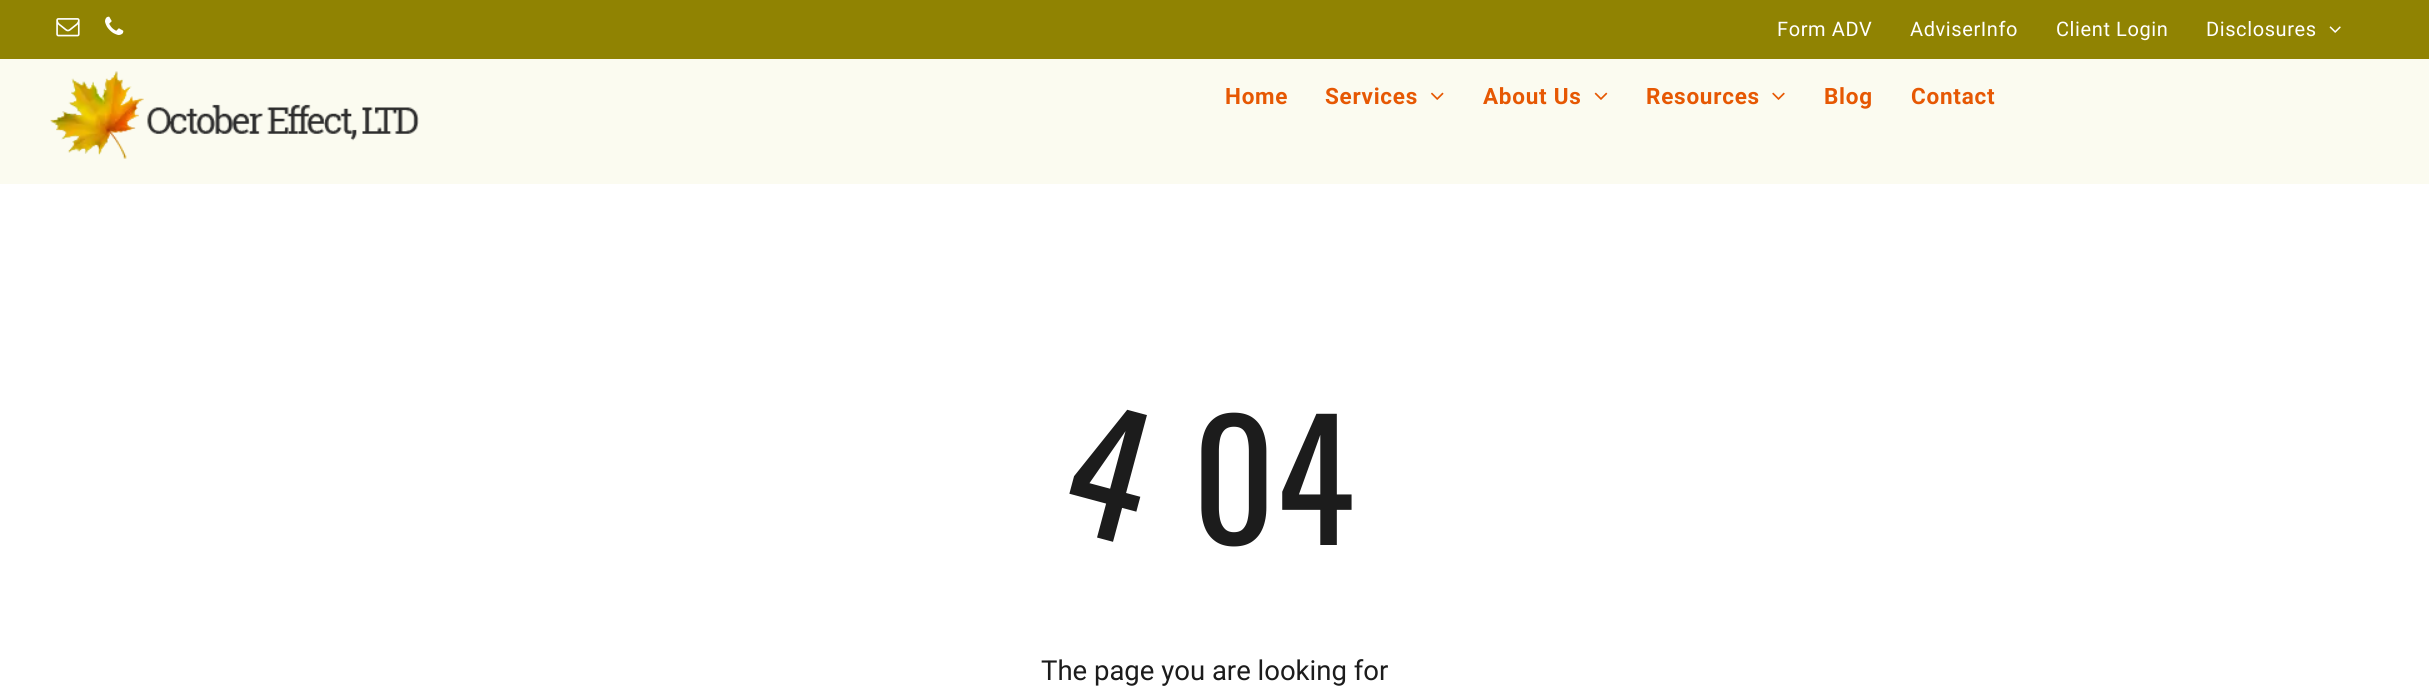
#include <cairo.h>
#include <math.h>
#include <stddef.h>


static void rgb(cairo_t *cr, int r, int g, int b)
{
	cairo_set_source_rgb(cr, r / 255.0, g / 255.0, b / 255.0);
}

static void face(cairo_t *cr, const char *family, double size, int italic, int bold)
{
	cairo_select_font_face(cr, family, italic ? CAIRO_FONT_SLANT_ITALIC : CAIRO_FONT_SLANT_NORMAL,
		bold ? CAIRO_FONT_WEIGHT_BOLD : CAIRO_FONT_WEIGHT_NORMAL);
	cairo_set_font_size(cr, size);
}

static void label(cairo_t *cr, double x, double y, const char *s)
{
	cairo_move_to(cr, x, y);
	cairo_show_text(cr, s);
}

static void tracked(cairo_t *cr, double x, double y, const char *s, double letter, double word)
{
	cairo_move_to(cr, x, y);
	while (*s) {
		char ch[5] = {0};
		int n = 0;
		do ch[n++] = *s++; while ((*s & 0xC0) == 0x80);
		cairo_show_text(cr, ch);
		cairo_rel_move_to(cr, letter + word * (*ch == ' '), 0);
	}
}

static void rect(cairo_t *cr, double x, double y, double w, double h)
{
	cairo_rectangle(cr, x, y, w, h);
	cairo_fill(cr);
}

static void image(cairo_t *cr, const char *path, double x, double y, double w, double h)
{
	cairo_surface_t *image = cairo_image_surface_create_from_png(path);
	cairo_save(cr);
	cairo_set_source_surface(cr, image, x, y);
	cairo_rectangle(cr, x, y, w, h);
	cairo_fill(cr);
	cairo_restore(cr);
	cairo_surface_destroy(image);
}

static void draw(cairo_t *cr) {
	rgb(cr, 255, 255, 255);
	cairo_paint(cr);
	rgb(cr, 251, 251, 240);
	rect(cr, 0, 59, 2429, 125);
	rgb(cr, 144, 131, 2);
	rect(cr, 0, 0, 2429, 59);
	image(cr, "image0.png", 56, 18, 24, 19);
	image(cr, "image1.png", 105, 16, 19, 19);
	face(cr, "Roboto", 20, 0, 0);
	rgb(cr, 255, 255, 255);
	tracked(cr, 1777, 36, "Form ADV", 0.6, 0);
	tracked(cr, 1910, 36, "AdviserInfo", 0.6, 0);
	tracked(cr, 2056, 36, "Client Login", 0.6, 0);
	tracked(cr, 2206, 36, "Disclosures", 0.6, 0);
	image(cr, "image2.png", 2329, 26, 12, 7);
	image(cr, "image3.png", 50, 71, 369, 88);
	face(cr, "Roboto", 22.5, 0, 1);
	rgb(cr, 230, 88, 3);
	tracked(cr, 1225, 104, "Home", 0.75, 0);
	tracked(cr, 1325, 104, "Services", 0.75, 0);
	image(cr, "image4.png", 1431, 92, 13, 8);
	tracked(cr, 1483, 104, "About Us", 0.75, 0);
	image(cr, "image5.png", 1594, 92, 14, 8);
	tracked(cr, 1646, 104, "Resources", 0.75, 0);
	image(cr, "image6.png", 1772, 92, 13, 8);
	tracked(cr, 1824, 104, "Blog", 0.75, 0);
	tracked(cr, 1911, 104, "Contact", 0.75, 0);
	face(cr, "Oswald", 162, 0, 0);
	rgb(cr, 28, 28, 28);
	cairo_save(cr);
	cairo_translate(cr, 1054, 526);
	cairo_rotate(cr, 15 * M_PI / 180);
	label(cr, 0, 0, "4");
	cairo_restore(cr);
	label(cr, 1192, 545, "04");
	face(cr, "Roboto", 27.5, 0, 0);
	label(cr, 1041, 680, "The page you are looking for");
}

int main(void) {
	cairo_surface_t *surface = cairo_image_surface_create(CAIRO_FORMAT_RGB24, 2429, 697);
	cairo_t *cr = cairo_create(surface);
	cairo_font_options_t *options = cairo_font_options_create();
	cairo_font_options_set_hint_metrics(options, CAIRO_HINT_METRICS_OFF);
	cairo_font_options_set_hint_style(options, CAIRO_HINT_STYLE_NONE);
	cairo_set_font_options(cr, options);
	cairo_set_miter_limit(cr, 4);
	draw(cr);
	cairo_surface_write_to_png(surface, "render.png");
	cairo_font_options_destroy(options);
	cairo_destroy(cr);
	cairo_surface_destroy(surface);
	return 0;
}
